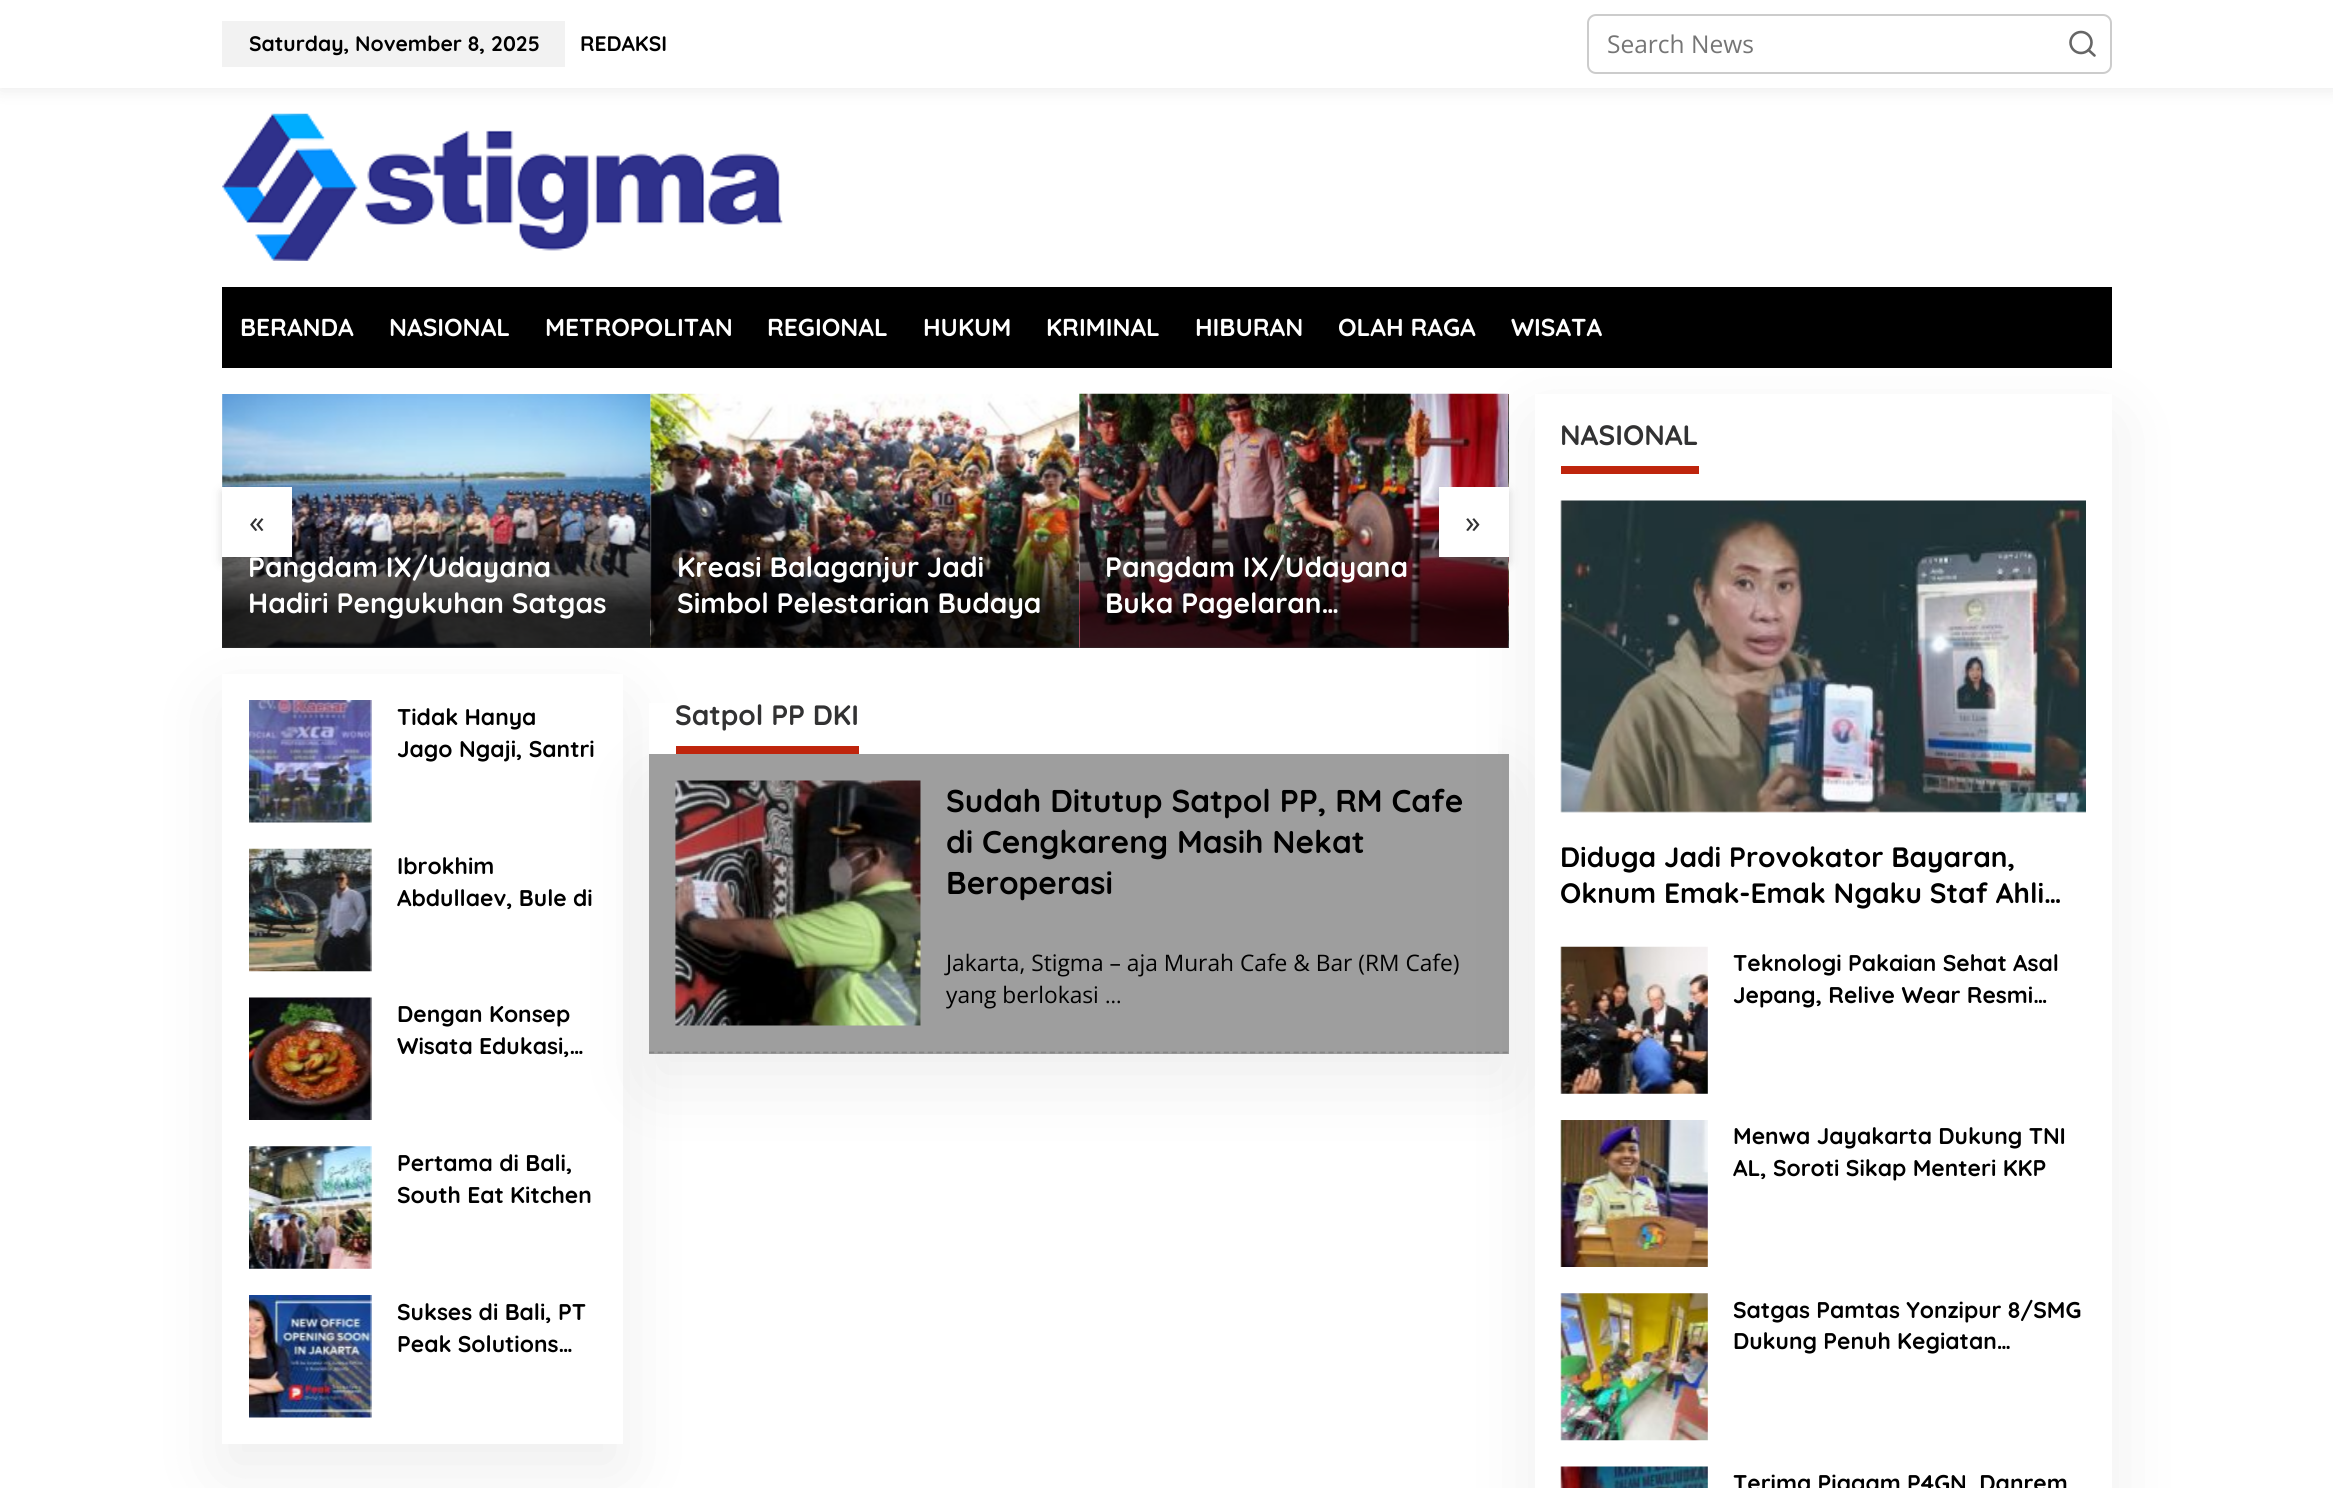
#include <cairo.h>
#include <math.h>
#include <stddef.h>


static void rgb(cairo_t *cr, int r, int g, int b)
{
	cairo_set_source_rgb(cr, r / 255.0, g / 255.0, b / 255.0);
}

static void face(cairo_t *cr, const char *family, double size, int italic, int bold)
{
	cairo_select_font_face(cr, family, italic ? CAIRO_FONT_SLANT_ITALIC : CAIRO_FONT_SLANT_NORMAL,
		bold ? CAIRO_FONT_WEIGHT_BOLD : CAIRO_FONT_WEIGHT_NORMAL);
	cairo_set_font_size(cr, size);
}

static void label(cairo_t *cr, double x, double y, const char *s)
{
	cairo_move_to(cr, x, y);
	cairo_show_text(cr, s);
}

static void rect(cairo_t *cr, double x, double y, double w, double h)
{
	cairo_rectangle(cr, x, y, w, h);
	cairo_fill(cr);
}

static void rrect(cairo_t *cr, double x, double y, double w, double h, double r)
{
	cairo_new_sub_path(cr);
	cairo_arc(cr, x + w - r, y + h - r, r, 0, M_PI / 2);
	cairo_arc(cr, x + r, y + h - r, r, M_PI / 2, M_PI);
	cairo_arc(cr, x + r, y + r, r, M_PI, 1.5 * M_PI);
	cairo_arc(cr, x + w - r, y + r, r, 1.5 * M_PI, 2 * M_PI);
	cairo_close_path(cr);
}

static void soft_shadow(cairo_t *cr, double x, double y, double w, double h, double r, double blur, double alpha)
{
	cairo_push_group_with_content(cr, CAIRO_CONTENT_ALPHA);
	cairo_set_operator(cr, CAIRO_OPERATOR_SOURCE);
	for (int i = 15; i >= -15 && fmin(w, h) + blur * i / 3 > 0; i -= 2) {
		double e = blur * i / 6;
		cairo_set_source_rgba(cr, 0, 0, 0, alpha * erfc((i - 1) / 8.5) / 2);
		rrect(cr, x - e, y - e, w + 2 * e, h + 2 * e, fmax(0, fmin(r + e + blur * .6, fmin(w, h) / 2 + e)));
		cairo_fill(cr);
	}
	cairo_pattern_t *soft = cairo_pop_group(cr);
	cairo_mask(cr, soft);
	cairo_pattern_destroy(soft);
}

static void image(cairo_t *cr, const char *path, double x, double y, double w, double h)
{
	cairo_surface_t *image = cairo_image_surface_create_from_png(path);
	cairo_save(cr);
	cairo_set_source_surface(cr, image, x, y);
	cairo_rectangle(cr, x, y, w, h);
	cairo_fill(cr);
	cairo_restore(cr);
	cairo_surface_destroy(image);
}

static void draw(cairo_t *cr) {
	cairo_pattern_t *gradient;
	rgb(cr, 255, 255, 255);
	cairo_paint(cr);
	image(cr, "image0.png", 222, 113, 561, 148);
	rgb(cr, 0, 0, 0);
	soft_shadow(cr, 0, 0, 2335, 88, 0, 9, 0.1);
	rgb(cr, 255, 255, 255);
	rect(cr, 0, 0, 2333, 88);
	rgb(cr, 242, 242, 242);
	rect(cr, 222, 21, 343, 46);
	face(cr, "Quicksand", 21, 0, 1);
	rgb(cr, 0, 0, 0);
	label(cr, 249, 51, "Saturday, November 8, 2025");
	label(cr, 580, 51, "REDAKSI");
	rrect(cr, 1588, 15, 523, 58, 8);
	rgb(cr, 204, 204, 204);
	cairo_stroke(cr);
	face(cr, "Open Sans", 24.5, 0, 0);
	rgb(cr, 117, 117, 117);
	label(cr, 1607, 53, "Search News");
	cairo_new_path(cr);
	cairo_arc(cr, 2081, 42.5, 10.5, 0, 2 * M_PI);
	rgb(cr, 102, 102, 102);
	cairo_set_line_width(cr, 2.6);
	cairo_stroke(cr);
	cairo_new_path(cr);
	cairo_move_to(cr, 2094.5, 55.5);
	cairo_line_to(cr, 2088.5, 50);
	cairo_set_line_cap(cr, CAIRO_LINE_CAP_ROUND);
	cairo_set_line_join(cr, CAIRO_LINE_JOIN_ROUND);
	cairo_stroke(cr);
	rgb(cr, 0, 0, 0);
	rect(cr, 222, 287, 1890, 81);
	face(cr, "Quicksand", 24.5, 0, 1);
	rgb(cr, 255, 255, 255);
	label(cr, 240, 336, "BERANDA");
	label(cr, 389, 336, "NASIONAL");
	label(cr, 545, 336, "METROPOLITAN");
	label(cr, 767, 336, "REGIONAL");
	label(cr, 923, 336, "HUKUM");
	label(cr, 1046, 336, "KRIMINAL");
	label(cr, 1195, 336, "HIBURAN");
	label(cr, 1338, 336, "OLAH RAGA");
	label(cr, 1511, 336, "WISATA");
	image(cr, "image1.png", 222, 394, 1, 254);
	image(cr, "image2.png", 222, 394, 430, 254);
	gradient = cairo_pattern_create_linear(436, 523, 436, 648);
	cairo_pattern_add_color_stop_rgba(gradient, 0, 0, 0, 0, 0);
	cairo_pattern_add_color_stop_rgba(gradient, 0.7, 0, 0, 0, 0.8);
	cairo_set_source(cr, gradient);
	cairo_pattern_destroy(gradient);
	rect(cr, 222, 525, 429, 123);
	rgb(cr, 51, 51, 51);
	soft_shadow(cr, 222, 492, 70, 70, 0, 5, 0.2);
	rgb(cr, 255, 255, 255);
	rect(cr, 222, 487, 70, 70);
	face(cr, "Open Sans", 31.5, 0, 0);
	rgb(cr, 50, 50, 51);
	label(cr, 249, 533, "«");
	image(cr, "image3.png", 650, 393, 430, 255);
	gradient = cairo_pattern_create_linear(865, 523, 865, 648);
	cairo_pattern_add_color_stop_rgba(gradient, 0, 0, 0, 0, 0);
	cairo_pattern_add_color_stop_rgba(gradient, 0.7, 0, 0, 0, 0.8);
	cairo_set_source(cr, gradient);
	cairo_pattern_destroy(gradient);
	rect(cr, 651, 525, 429, 123);
	image(cr, "image4.png", 1079, 393, 430, 255);
	gradient = cairo_pattern_create_linear(1294, 523, 1294, 648);
	cairo_pattern_add_color_stop_rgba(gradient, 0, 0, 0, 0, 0);
	cairo_pattern_add_color_stop_rgba(gradient, 0.7, 0, 0, 0, 0.8);
	cairo_set_source(cr, gradient);
	cairo_pattern_destroy(gradient);
	rect(cr, 1080, 525, 429, 123);
	image(cr, "image5.png", 1508, 394, 1, 254);
	rgb(cr, 51, 51, 51);
	soft_shadow(cr, 1439, 492, 70, 70, 0, 5, 0.2);
	rgb(cr, 0, 0, 0);
	soft_shadow(cr, 222, 702, 401, 770, 0, 39.5, 0.07);
	rgb(cr, 255, 255, 255);
	rect(cr, 222, 674, 401, 770);
	rgb(cr, 0, 0, 0);
	soft_shadow(cr, 649, 782, 860, 300, 0, 39.5, 0.07);
	rgb(cr, 255, 255, 255);
	rect(cr, 649, 703, 849, 51);
	rgb(cr, 158, 158, 158);
	rect(cr, 649, 754, 860, 300);
	cairo_new_path(cr);
	cairo_move_to(cr, 649, 1052.5);
	cairo_line_to(cr, 1508.5, 1052.5);
	rgb(cr, 134, 134, 134);
	cairo_set_line_width(cr, 1.8);
	cairo_set_line_cap(cr, CAIRO_LINE_CAP_BUTT);
	cairo_set_line_join(cr, CAIRO_LINE_JOIN_MITER);
	cairo_set_dash(cr, (double[]){5.25, 3.46}, 2, 0);
	cairo_stroke(cr);
	rgb(cr, 0, 0, 0);
	soft_shadow(cr, 1535, 422, 577, 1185, 0, 39.5, 0.07);
	rgb(cr, 255, 255, 255);
	rect(cr, 1439, 487, 70, 70);
	rgb(cr, 50, 50, 51);
	label(cr, 1465, 533, "»");
	face(cr, "Quicksand", 28, 0, 1);
	rgb(cr, 255, 255, 255);
	label(cr, 248, 577, "Pangdam IX/Udayana");
	label(cr, 248, 613, "Hadiri Pengukuhan Satgas");
	label(cr, 677, 577, "Kreasi Balaganjur Jadi");
	label(cr, 677, 613, "Simbol Pelestarian Budaya");
	label(cr, 1105, 577, "Pangdam IX/Udayana");
	label(cr, 1105, 613, "Buka Pagelaran…");
	image(cr, "image6.png", 249, 700, 123, 123);
	face(cr, "Quicksand", 22.75, 0, 1);
	rgb(cr, 0, 0, 0);
	label(cr, 397, 725, "Tidak Hanya");
	label(cr, 397, 757, "Jago Ngaji, Santri");
	image(cr, "image7.png", 249, 848, 123, 124);
	label(cr, 397, 874, "Ibrokhim");
	label(cr, 397, 906, "Abdullaev, Bule di");
	image(cr, "image8.png", 249, 997, 123, 123);
	label(cr, 397, 1022, "Dengan Konsep");
	label(cr, 397, 1054, "Wisata Edukasi,…");
	image(cr, "image9.png", 249, 1146, 123, 123);
	label(cr, 397, 1171, "Pertama di Bali,");
	label(cr, 397, 1203, "South Eat Kitchen");
	image(cr, "image10.png", 249, 1295, 123, 123);
	label(cr, 397, 1320, "Sukses di Bali, PT");
	label(cr, 397, 1352, "Peak Solutions…");
	rgb(cr, 191, 37, 13);
	rect(cr, 676, 746, 183, 8);
	face(cr, "Quicksand", 28, 0, 1);
	rgb(cr, 50, 50, 51);
	label(cr, 675, 725, "Satpol PP DKI");
	image(cr, "image11.png", 675, 780, 246, 246);
	face(cr, "Quicksand", 31.5, 0, 1);
	rgb(cr, 0, 0, 0);
	label(cr, 946, 812, "Sudah Ditutup Satpol PP, RM Cafe");
	label(cr, 946, 853, "di Cengkareng Masih Nekat");
	label(cr, 946, 894, "Beroperasi");
	face(cr, "Open Sans", 22.75, 0, 0);
	label(cr, 946, 971, "Jakarta, Stigma – aja Murah Cafe & Bar (RM Cafe)");
	label(cr, 946, 1003, "yang berlokasi");
	face(cr, "Open Sans", 21, 0, 0);
	label(cr, 1105, 1003, "...");
	rgb(cr, 255, 255, 255);
	rect(cr, 1535, 394, 577, 1094);
	rgb(cr, 191, 37, 13);
	rect(cr, 1561, 466, 138, 8);
	face(cr, "Quicksand", 28, 0, 1);
	rgb(cr, 50, 50, 51);
	label(cr, 1560, 445, "NASIONAL");
	image(cr, "image12.png", 1560, 500, 526, 313);
	rgb(cr, 0, 0, 0);
	label(cr, 1560, 867, "Diduga Jadi Provokator Bayaran,");
	label(cr, 1560, 903, "Oknum Emak-Emak Ngaku Staf Ahli…");
	image(cr, "image13.png", 1560, 946, 148, 148);
	face(cr, "Quicksand", 22.75, 0, 1);
	label(cr, 1733, 971, "Teknologi Pakaian Sehat Asal");
	label(cr, 1733, 1003, "Jepang, Relive Wear Resmi…");
	image(cr, "image14.png", 1560, 1120, 148, 147);
	label(cr, 1733, 1144, "Menwa Jayakarta Dukung TNI");
	label(cr, 1733, 1176, "AL, Soroti Sikap Menteri KKP");
	image(cr, "image15.png", 1560, 1293, 148, 148);
	label(cr, 1733, 1318, "Satgas Pamtas Yonzipur 8/SMG");
	label(cr, 1733, 1349, "Dukung Penuh Kegiatan…");
	image(cr, "image16.png", 1560, 1466, 148, 22);
	label(cr, 1733, 1491, "Terima Piagam P4GN, Danrem");
}

int main(void) {
	cairo_surface_t *surface = cairo_image_surface_create(CAIRO_FORMAT_RGB24, 2333, 1488);
	cairo_t *cr = cairo_create(surface);
	cairo_font_options_t *options = cairo_font_options_create();
	cairo_font_options_set_hint_metrics(options, CAIRO_HINT_METRICS_OFF);
	cairo_font_options_set_hint_style(options, CAIRO_HINT_STYLE_NONE);
	cairo_set_font_options(cr, options);
	cairo_set_miter_limit(cr, 4);
	draw(cr);
	cairo_surface_write_to_png(surface, "render.png");
	cairo_font_options_destroy(options);
	cairo_destroy(cr);
	cairo_surface_destroy(surface);
	return 0;
}
